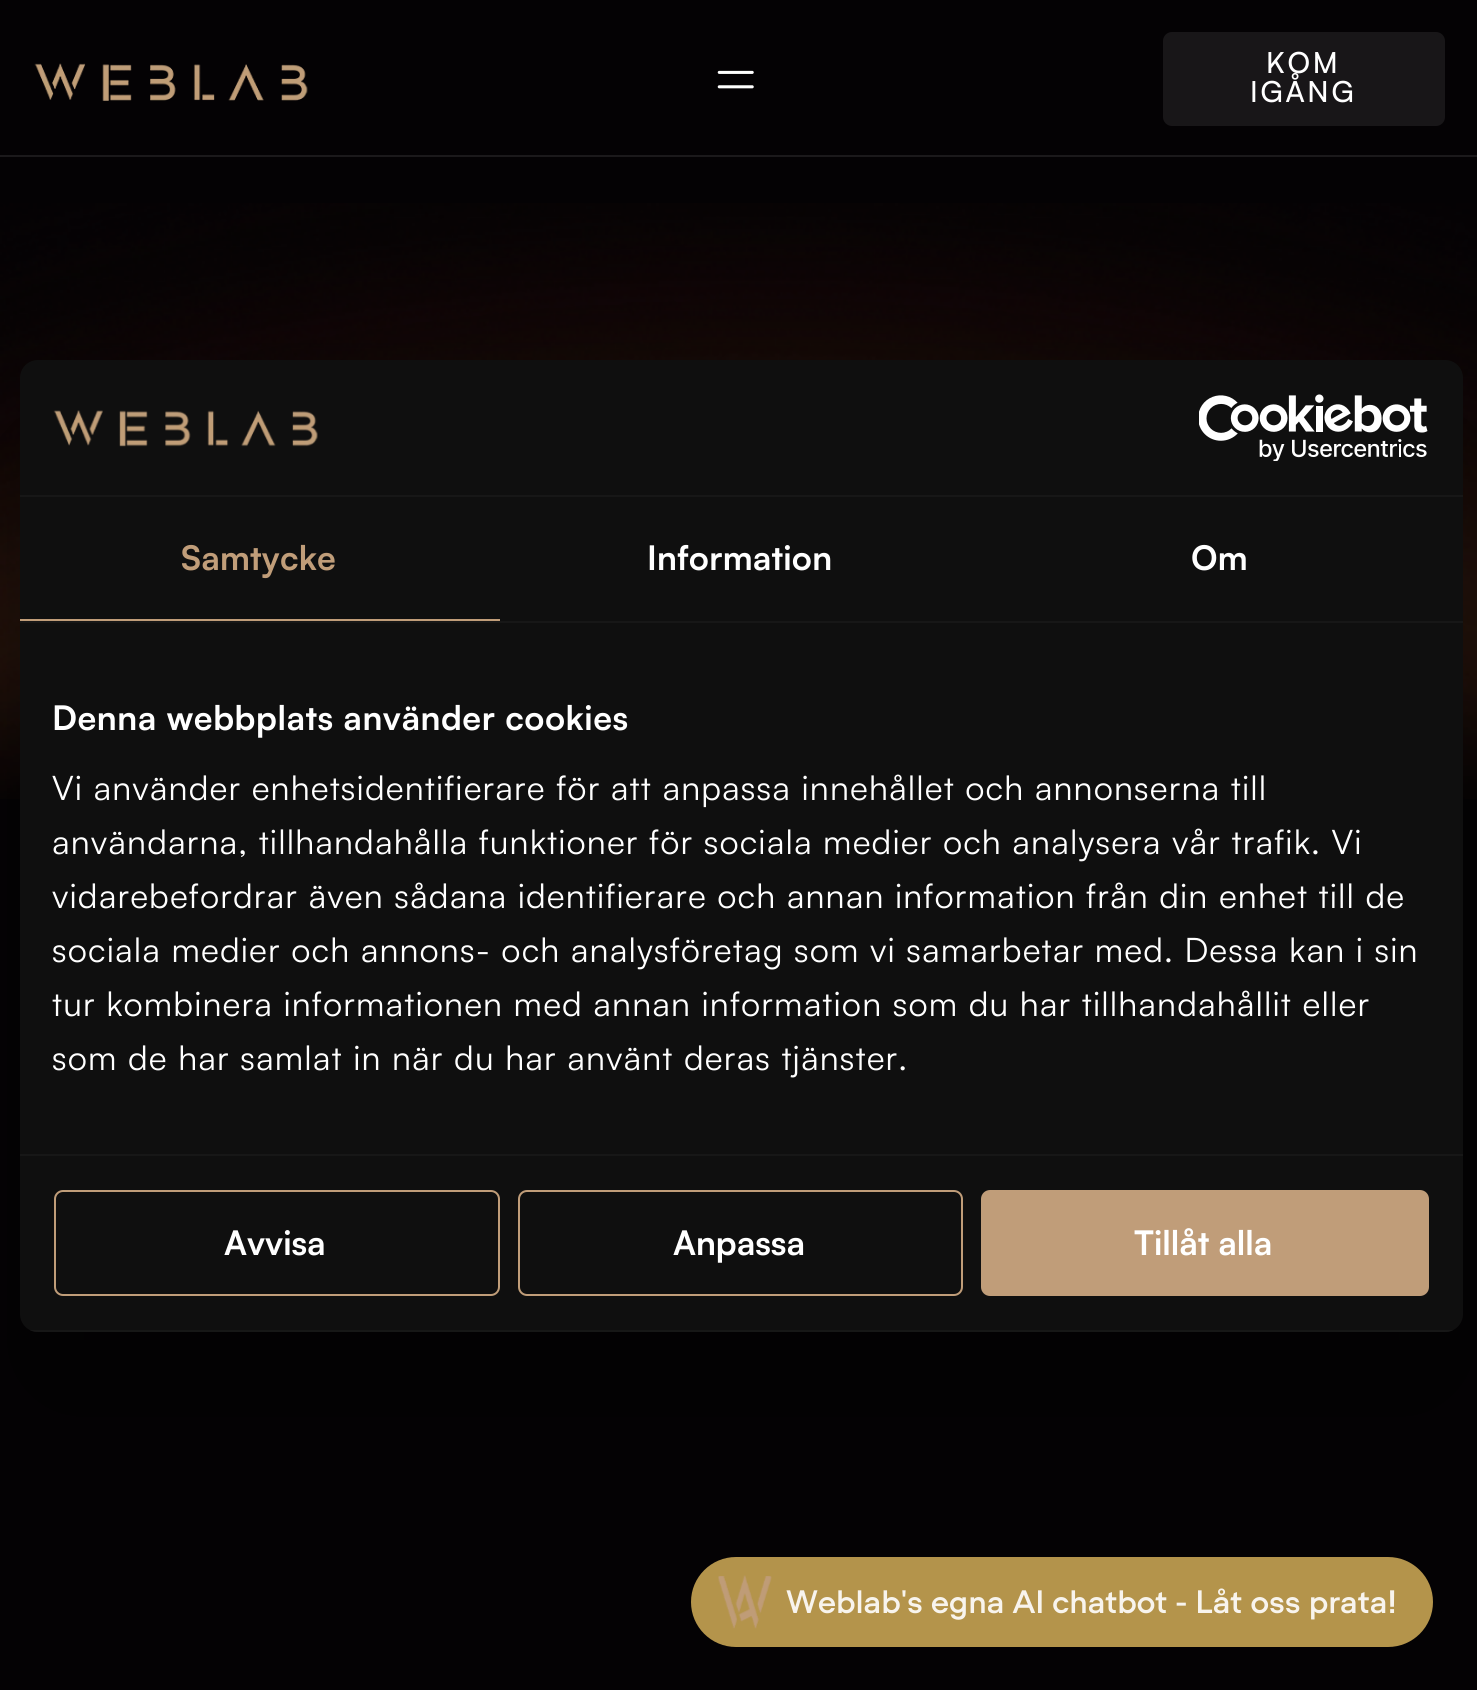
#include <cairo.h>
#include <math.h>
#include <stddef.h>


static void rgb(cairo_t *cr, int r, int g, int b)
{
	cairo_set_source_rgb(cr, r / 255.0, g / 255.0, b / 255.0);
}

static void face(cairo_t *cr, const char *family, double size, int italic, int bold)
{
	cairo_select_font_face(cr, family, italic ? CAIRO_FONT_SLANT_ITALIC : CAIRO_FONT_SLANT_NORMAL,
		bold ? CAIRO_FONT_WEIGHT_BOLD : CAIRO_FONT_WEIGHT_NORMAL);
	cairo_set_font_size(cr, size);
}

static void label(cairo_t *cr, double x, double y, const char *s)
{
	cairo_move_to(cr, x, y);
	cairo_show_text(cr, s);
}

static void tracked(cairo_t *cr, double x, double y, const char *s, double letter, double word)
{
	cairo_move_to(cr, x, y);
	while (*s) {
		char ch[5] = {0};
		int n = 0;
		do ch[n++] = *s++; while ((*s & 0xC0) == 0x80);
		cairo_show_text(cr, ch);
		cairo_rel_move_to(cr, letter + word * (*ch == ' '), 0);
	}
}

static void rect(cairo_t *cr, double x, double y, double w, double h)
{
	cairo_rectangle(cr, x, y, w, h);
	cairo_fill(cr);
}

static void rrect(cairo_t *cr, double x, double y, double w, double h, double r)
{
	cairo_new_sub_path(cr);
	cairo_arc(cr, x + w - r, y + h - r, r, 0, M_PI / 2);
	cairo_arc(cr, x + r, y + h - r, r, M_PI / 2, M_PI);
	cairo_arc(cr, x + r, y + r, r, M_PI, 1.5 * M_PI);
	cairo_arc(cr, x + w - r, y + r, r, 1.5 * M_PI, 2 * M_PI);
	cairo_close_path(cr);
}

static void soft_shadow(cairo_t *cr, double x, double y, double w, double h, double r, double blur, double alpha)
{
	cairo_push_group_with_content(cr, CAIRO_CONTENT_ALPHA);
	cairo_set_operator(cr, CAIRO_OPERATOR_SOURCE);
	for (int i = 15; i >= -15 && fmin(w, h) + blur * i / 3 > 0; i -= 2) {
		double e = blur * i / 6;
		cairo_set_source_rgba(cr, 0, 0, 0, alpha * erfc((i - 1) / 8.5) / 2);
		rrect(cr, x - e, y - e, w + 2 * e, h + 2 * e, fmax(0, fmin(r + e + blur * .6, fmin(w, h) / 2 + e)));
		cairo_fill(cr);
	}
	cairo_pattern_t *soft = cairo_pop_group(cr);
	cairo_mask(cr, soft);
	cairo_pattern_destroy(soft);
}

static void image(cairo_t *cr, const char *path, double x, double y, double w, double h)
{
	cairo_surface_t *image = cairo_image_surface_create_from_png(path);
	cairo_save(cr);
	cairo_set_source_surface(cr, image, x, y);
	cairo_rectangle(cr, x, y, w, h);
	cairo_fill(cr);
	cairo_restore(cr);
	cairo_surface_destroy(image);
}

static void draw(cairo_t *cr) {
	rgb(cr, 4, 2, 4);
	cairo_paint(cr);
	rgb(cr, 27, 25, 27);
	rect(cr, 0, 155, 1477, 2);
	image(cr, "image0.png", 34, 63, 274, 38);
	image(cr, "image1.png", 717, 70, 37, 19);
	rgb(cr, 24, 22, 24);
	rrect(cr, 1163, 32, 282, 94, 9);
	cairo_fill(cr);
	face(cr, "Satoshi Medium", 29, 0, 0);
	rgb(cr, 255, 255, 255);
	tracked(cr, 1266, 73, "KOM", 2.75, 0);
	tracked(cr, 1250, 102, "IGÅNG", 2.75, 0);
	image(cr, "image2.png", 0, 203, 1477, 596);
	rgb(cr, 180, 148, 75);
	rrect(cr, 691, 1557, 742, 90, 45);
	cairo_fill(cr);
	image(cr, "image5.png", 718, 1575, 54, 54);
	rgb(cr, 0, 0, 0);
	soft_shadow(cr, 20, 432, 1443, 972, 18, 76.5, 0.3);
	rgb(cr, 15, 15, 15);
	rrect(cr, 20, 360, 1443, 972, 18);
	cairo_fill(cr);
	rgb(cr, 23, 23, 23);
	rect(cr, 20, 495, 1443, 2);
	image(cr, "image3.png", 53, 410, 265, 37);
	image(cr, "image4.png", 1199, 394, 229, 67);
	rect(cr, 20, 621, 1443, 2);
	rgb(cr, 192, 157, 121);
	rect(cr, 20, 619, 480, 2);
	face(cr, "Satoshi", 33.75, 0, 1);
	tracked(cr, 181, 570, "Samtycke", 0.25, 0);
	rgb(cr, 255, 255, 255);
	tracked(cr, 647, 570, "Information", 0.25, 0);
	tracked(cr, 1191, 570, "Om", 0.25, 0);
	rgb(cr, 23, 23, 23);
	rect(cr, 20, 1154, 1443, 2);
	rgb(cr, 255, 255, 255);
	tracked(cr, 52, 730, "Denna webbplats använder cookies", 0.55, 0);
	face(cr, "Satoshi", 33.75, 0, 0);
	tracked(cr, 52, 800, "Vi använder enhetsidentifierare för att anpassa innehållet och annonserna till", 1.12, 0);
	tracked(cr, 52, 854, "användarna, tillhandahålla funktioner för sociala medier och analysera vår trafik. Vi", 1.12, 0);
	tracked(cr, 52, 908, "vidarebefordrar även sådana identifierare och annan information från din enhet till de", 1.12, 0);
	tracked(cr, 52, 962, "sociala medier och annons- och analysföretag som vi samarbetar med. Dessa kan i sin", 1.12, 0);
	tracked(cr, 52, 1016, "tur kombinera informationen med annan information som du har tillhandahållit eller", 1.12, 0);
	tracked(cr, 52, 1070, "som de har samlat in när du har använt deras tjänster.", 1.12, 0);
	cairo_save(cr);
	rrect(cr, 20, 360, 1443, 972, 18);
	cairo_clip(cr);
	rgb(cr, 23, 23, 23);
	rect(cr, 30, 1330, 1423, 2);
	cairo_restore(cr);
	rrect(cr, 55, 1191, 444, 104, 8);
	rgb(cr, 192, 157, 121);
	cairo_stroke(cr);
	face(cr, "Satoshi", 33.75, 0, 1);
	rgb(cr, 255, 255, 255);
	label(cr, 224, 1255, "Avvisa");
	rrect(cr, 519, 1191, 443, 104, 8);
	rgb(cr, 192, 157, 121);
	cairo_stroke(cr);
	rgb(cr, 255, 255, 255);
	label(cr, 673, 1255, "Anpassa");
	rgb(cr, 192, 157, 121);
	rrect(cr, 981, 1190, 448, 106, 9);
	cairo_fill(cr);
	rgb(cr, 255, 255, 255);
	label(cr, 1134, 1255, "Tillåt alla");
	face(cr, "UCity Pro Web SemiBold", 31.5, 0, 0);
	rgb(cr, 248, 244, 237);
	label(cr, 786, 1613, "Weblab's egna AI chatbot - Låt oss prata!");
}

int main(void) {
	cairo_surface_t *surface = cairo_image_surface_create(CAIRO_FORMAT_RGB24, 1477, 1690);
	cairo_t *cr = cairo_create(surface);
	cairo_font_options_t *options = cairo_font_options_create();
	cairo_font_options_set_hint_metrics(options, CAIRO_HINT_METRICS_OFF);
	cairo_font_options_set_hint_style(options, CAIRO_HINT_STYLE_NONE);
	cairo_set_font_options(cr, options);
	cairo_set_miter_limit(cr, 4);
	draw(cr);
	cairo_surface_write_to_png(surface, "render.png");
	cairo_font_options_destroy(options);
	cairo_destroy(cr);
	cairo_surface_destroy(surface);
	return 0;
}
